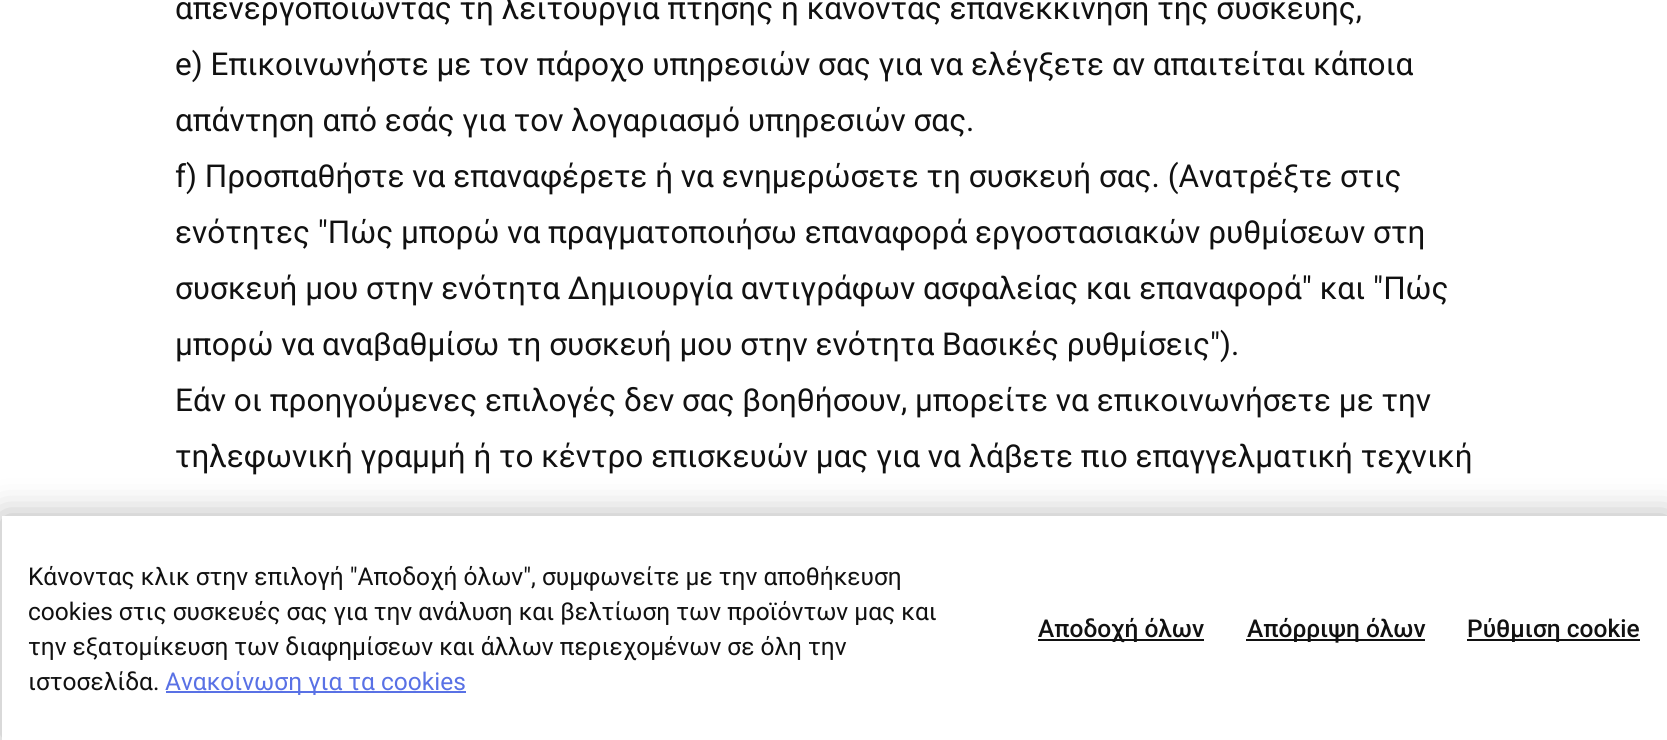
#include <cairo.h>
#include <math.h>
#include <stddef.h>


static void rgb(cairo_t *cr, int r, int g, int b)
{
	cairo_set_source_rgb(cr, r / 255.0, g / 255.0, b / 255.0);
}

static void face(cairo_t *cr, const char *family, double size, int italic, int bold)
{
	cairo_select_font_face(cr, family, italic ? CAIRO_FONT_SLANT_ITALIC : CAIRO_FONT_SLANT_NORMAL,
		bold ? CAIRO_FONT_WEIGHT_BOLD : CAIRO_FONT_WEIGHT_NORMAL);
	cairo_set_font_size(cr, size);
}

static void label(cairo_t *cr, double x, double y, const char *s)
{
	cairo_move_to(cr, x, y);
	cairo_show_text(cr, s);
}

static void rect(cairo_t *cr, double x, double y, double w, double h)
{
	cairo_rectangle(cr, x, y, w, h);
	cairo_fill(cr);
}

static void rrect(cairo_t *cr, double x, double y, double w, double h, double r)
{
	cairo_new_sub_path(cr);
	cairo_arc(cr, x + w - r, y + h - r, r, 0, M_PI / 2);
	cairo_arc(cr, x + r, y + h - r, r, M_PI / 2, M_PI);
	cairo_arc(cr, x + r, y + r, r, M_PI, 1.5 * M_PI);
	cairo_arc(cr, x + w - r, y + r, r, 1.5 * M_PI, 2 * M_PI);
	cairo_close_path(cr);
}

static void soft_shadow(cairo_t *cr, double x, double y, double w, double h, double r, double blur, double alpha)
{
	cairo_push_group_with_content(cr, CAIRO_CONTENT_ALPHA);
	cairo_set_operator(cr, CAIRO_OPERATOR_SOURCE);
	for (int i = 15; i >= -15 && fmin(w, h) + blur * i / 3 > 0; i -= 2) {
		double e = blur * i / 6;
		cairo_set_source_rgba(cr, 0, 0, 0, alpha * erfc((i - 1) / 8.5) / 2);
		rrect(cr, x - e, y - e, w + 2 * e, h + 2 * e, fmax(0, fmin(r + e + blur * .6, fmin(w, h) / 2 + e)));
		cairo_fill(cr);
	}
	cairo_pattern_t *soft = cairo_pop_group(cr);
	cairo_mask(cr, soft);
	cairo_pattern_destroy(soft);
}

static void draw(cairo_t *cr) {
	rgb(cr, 255, 255, 255);
	cairo_paint(cr);
	face(cr, "Roboto", 31.5, 0, 0);
	rgb(cr, 17, 17, 17);
	label(cr, 175, 19, "απενεργοποιώντας τη λειτουργία πτήσης ή κάνοντας επανεκκίνηση της συσκευής,");
	label(cr, 175, 75, "e) Επικοινωνήστε με τον πάροχο υπηρεσιών σας για να ελέγξετε αν απαιτείται κάποια");
	label(cr, 175, 131, "απάντηση από εσάς για τον λογαριασμό υπηρεσιών σας.");
	label(cr, 175, 187, "f) Προσπαθήστε να επαναφέρετε ή να ενημερώσετε τη συσκευή σας. (Ανατρέξτε στις");
	label(cr, 175, 243, "ενότητες \"Πώς μπορώ να πραγματοποιήσω επαναφορά εργοστασιακών ρυθμίσεων στη");
	label(cr, 175, 299, "συσκευή μου στην ενότητα Δημιουργία αντιγράφων ασφαλείας και επαναφορά\" και \"Πώς");
	label(cr, 175, 355, "μπορώ να αναβαθμίσω τη συσκευή μου στην ενότητα Βασικές ρυθμίσεις\").");
	label(cr, 175, 411, "Εάν οι προηγούμενες επιλογές δεν σας βοηθήσουν, μπορείτε να επικοινωνήσετε με την");
	label(cr, 175, 467, "τηλεφωνική γραμμή ή το κέντρο επισκευών μας για να λάβετε πιο επαγγελματική τεχνική");
	cairo_save(cr);
	cairo_set_fill_rule(cr, CAIRO_FILL_RULE_EVEN_ODD);
	cairo_new_path(cr);
	cairo_move_to(cr, 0, 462);
	cairo_line_to(cr, 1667, 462);
	cairo_line_to(cr, 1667, 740);
	cairo_line_to(cr, 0, 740);
	cairo_close_path(cr);
	cairo_move_to(cr, 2, 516);
	cairo_line_to(cr, 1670, 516);
	cairo_line_to(cr, 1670, 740);
	cairo_line_to(cr, 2, 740);
	cairo_close_path(cr);
	cairo_clip(cr);
	rgb(cr, 0, 0, 0);
	soft_shadow(cr, 2, 516, 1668, 224, 0, 17.5, 0.3);
	cairo_restore(cr);
	rgb(cr, 255, 255, 255);
	rect(cr, 2, 516, 1665, 1);
	face(cr, "Roboto", 24.5, 0, 0);
	rgb(cr, 17, 17, 17);
	label(cr, 28, 585, "Κάνοντας κλικ στην επιλογή \"Αποδοχή όλων\", συμφωνείτε με την αποθήκευση");
	label(cr, 28, 620, "cookies στις συσκευές σας για την ανάλυση και βελτίωση των προϊόντων μας και");
	label(cr, 28, 655, "την εξατομίκευση των διαφημίσεων και άλλων περιεχομένων σε όλη την");
	label(cr, 28, 690, "ιστοσελίδα.");
	rgb(cr, 89, 113, 229);
	rect(cr, 166, 691, 300, 2);
	label(cr, 165, 690, "Ανακοίνωση για τα cookies");
	rgb(cr, 17, 17, 17);
	rect(cr, 1038, 639, 166, 2);
	face(cr, "Roboto Medium", 24.5, 0, 0);
	label(cr, 1038, 637, "Αποδοχή όλων");
	rect(cr, 1246, 639, 179, 2);
	label(cr, 1247, 637, "Απόρριψη όλων");
	rect(cr, 1467, 639, 173, 2);
	label(cr, 1467, 637, "Ρύθμιση cookie");
}

int main(void) {
	cairo_surface_t *surface = cairo_image_surface_create(CAIRO_FORMAT_RGB24, 1667, 740);
	cairo_t *cr = cairo_create(surface);
	cairo_font_options_t *options = cairo_font_options_create();
	cairo_font_options_set_hint_metrics(options, CAIRO_HINT_METRICS_OFF);
	cairo_font_options_set_hint_style(options, CAIRO_HINT_STYLE_NONE);
	cairo_set_font_options(cr, options);
	cairo_set_miter_limit(cr, 4);
	draw(cr);
	cairo_surface_write_to_png(surface, "render.png");
	cairo_font_options_destroy(options);
	cairo_destroy(cr);
	cairo_surface_destroy(surface);
	return 0;
}
